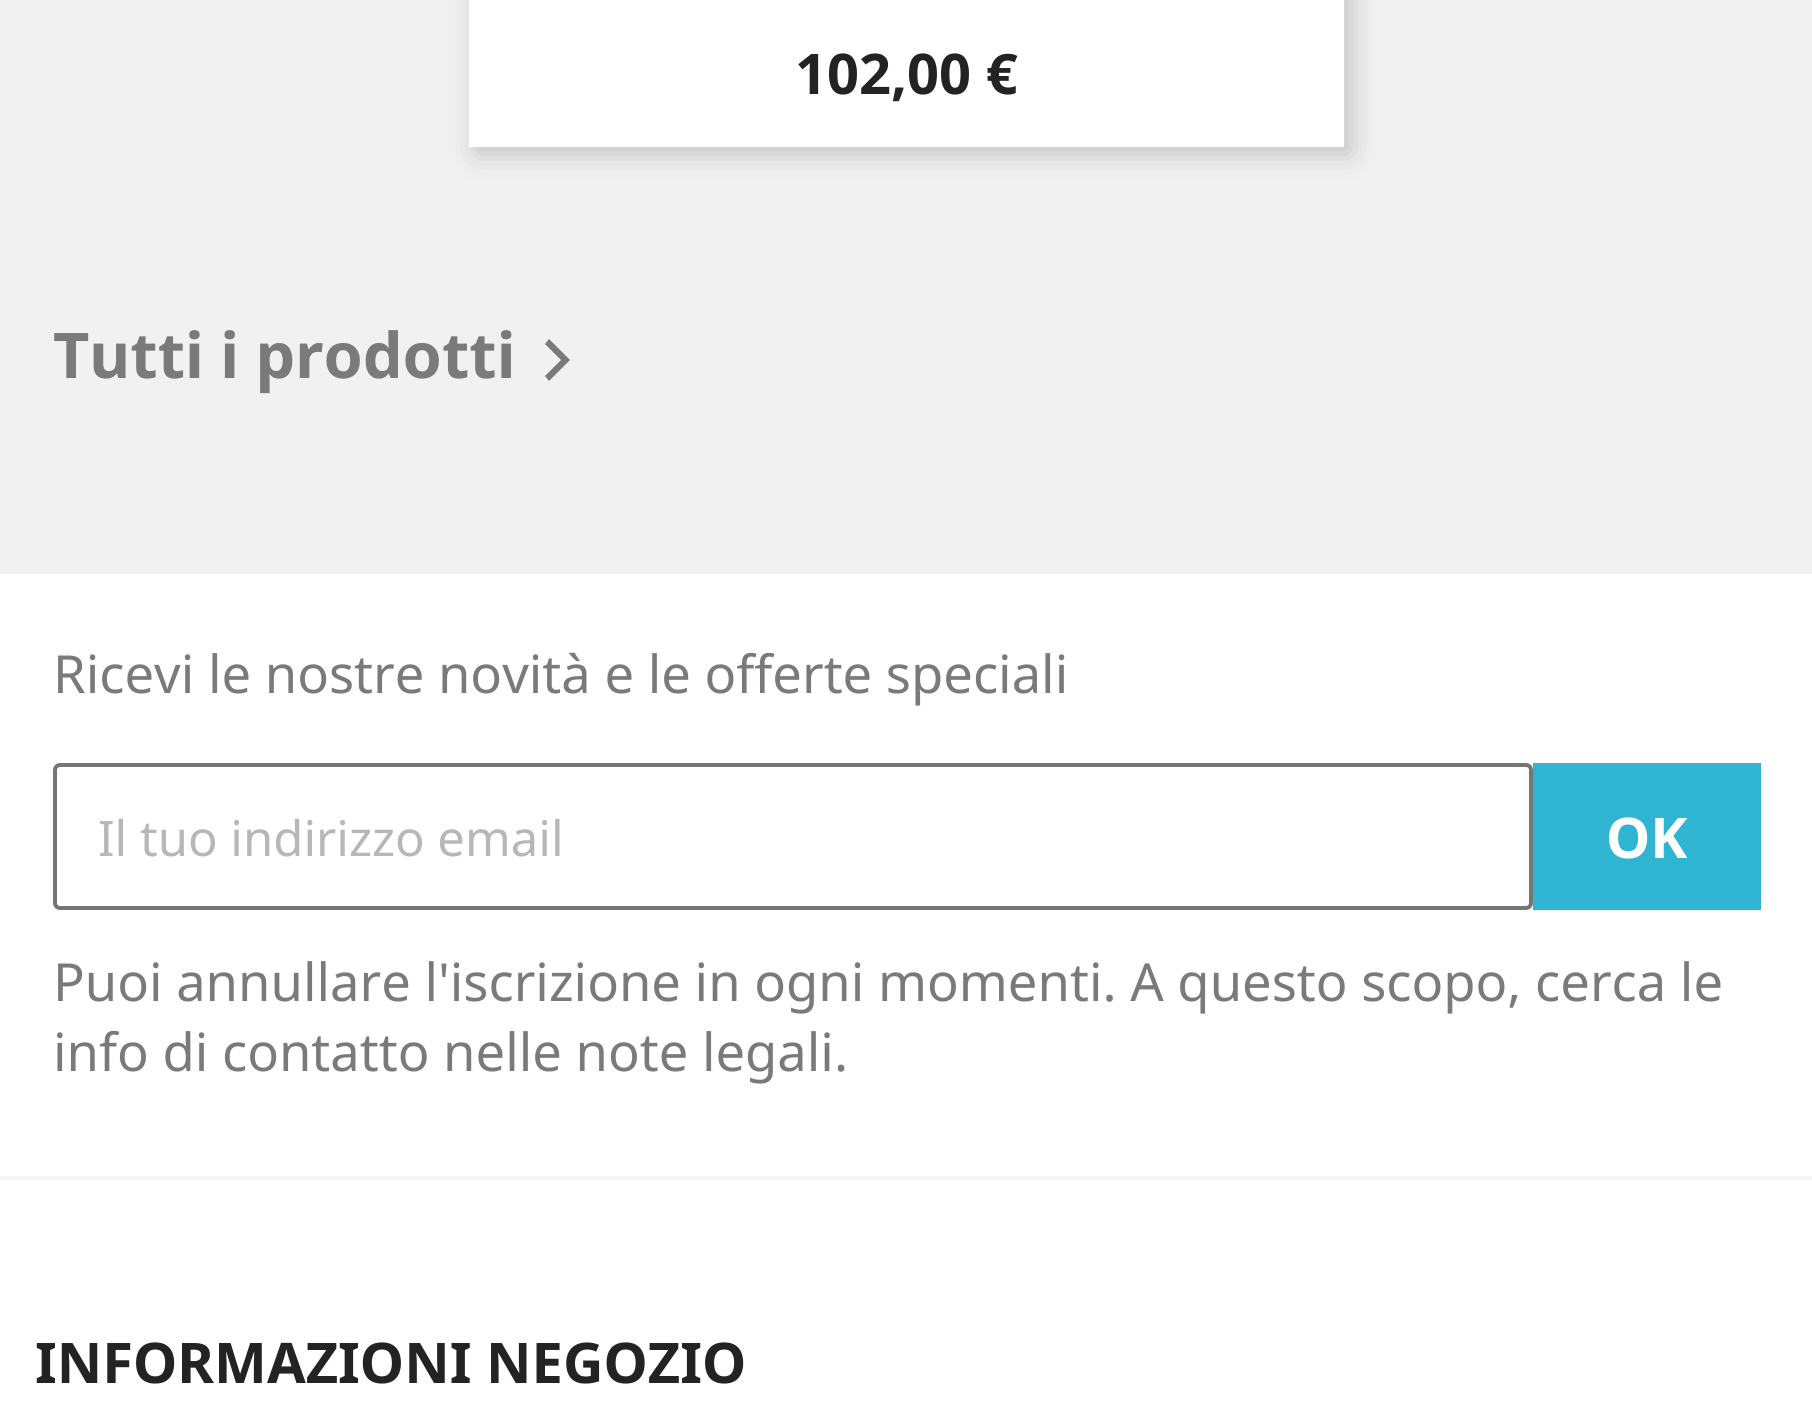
#include <cairo.h>
#include <math.h>
#include <stddef.h>


static void rgb(cairo_t *cr, int r, int g, int b)
{
	cairo_set_source_rgb(cr, r / 255.0, g / 255.0, b / 255.0);
}

static void face(cairo_t *cr, const char *family, double size, int italic, int bold)
{
	cairo_select_font_face(cr, family, italic ? CAIRO_FONT_SLANT_ITALIC : CAIRO_FONT_SLANT_NORMAL,
		bold ? CAIRO_FONT_WEIGHT_BOLD : CAIRO_FONT_WEIGHT_NORMAL);
	cairo_set_font_size(cr, size);
}

static void label(cairo_t *cr, double x, double y, const char *s)
{
	cairo_move_to(cr, x, y);
	cairo_show_text(cr, s);
}

static void rect(cairo_t *cr, double x, double y, double w, double h)
{
	cairo_rectangle(cr, x, y, w, h);
	cairo_fill(cr);
}

static void rrect(cairo_t *cr, double x, double y, double w, double h, double r)
{
	cairo_new_sub_path(cr);
	cairo_arc(cr, x + w - r, y + h - r, r, 0, M_PI / 2);
	cairo_arc(cr, x + r, y + h - r, r, M_PI / 2, M_PI);
	cairo_arc(cr, x + r, y + r, r, M_PI, 1.5 * M_PI);
	cairo_arc(cr, x + w - r, y + r, r, 1.5 * M_PI, 2 * M_PI);
	cairo_close_path(cr);
}

static void soft_shadow(cairo_t *cr, double x, double y, double w, double h, double r, double blur, double alpha)
{
	cairo_push_group_with_content(cr, CAIRO_CONTENT_ALPHA);
	cairo_set_operator(cr, CAIRO_OPERATOR_SOURCE);
	for (int i = 15; i >= -15 && fmin(w, h) + blur * i / 3 > 0; i -= 2) {
		double e = blur * i / 6;
		cairo_set_source_rgba(cr, 0, 0, 0, alpha * erfc((i - 1) / 8.5) / 2);
		rrect(cr, x - e, y - e, w + 2 * e, h + 2 * e, fmax(0, fmin(r + e + blur * .6, fmin(w, h) / 2 + e)));
		cairo_fill(cr);
	}
	cairo_pattern_t *soft = cairo_pop_group(cr);
	cairo_mask(cr, soft);
	cairo_pattern_destroy(soft);
}

static void draw(cairo_t *cr) {
	rgb(cr, 255, 255, 255);
	cairo_paint(cr);
	rgb(cr, 241, 241, 241);
	rect(cr, 0, 0, 1812, 574);
	rgb(cr, 0, 0, 0);
	soft_shadow(cr, 476, -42, 875, 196, 0, 14, 0.2);
	rgb(cr, 255, 255, 255);
	rect(cr, 469, 0, 875, 147);
	face(cr, "Noto Sans", 56, 0, 1);
	rgb(cr, 35, 35, 35);
	label(cr, 795, 94, "102,00 €");
	face(cr, "Noto Sans", 63, 0, 1);
	rgb(cr, 122, 122, 122);
	label(cr, 53, 378, "Tutti i prodotti");
	cairo_new_path(cr);
	cairo_move_to(cr, 545, 376);
	cairo_line_to(cr, 561, 360);
	cairo_line_to(cr, 545, 344);
	cairo_line_to(cr, 549, 339);
	cairo_line_to(cr, 570, 360);
	cairo_line_to(cr, 549, 381);
	cairo_close_path(cr);
	cairo_fill(cr);
	rgb(cr, 246, 246, 246);
	rect(cr, 0, 1176, 1812, 4);
	face(cr, "Noto Sans", 52.5, 0, 0);
	rgb(cr, 122, 122, 122);
	label(cr, 53, 693, "Ricevi le nostre novità e le offerte speciali");
	rrect(cr, 55, 765, 1476, 143, 5);
	rgb(cr, 118, 118, 118);
	cairo_set_line_width(cr, 4);
	cairo_stroke(cr);
	face(cr, "Noto Sans", 49, 0, 0);
	rgb(cr, 183, 183, 183);
	label(cr, 98, 856, "Il tuo indirizzo email");
	rgb(cr, 47, 181, 210);
	rect(cr, 1533, 763, 228, 147);
	face(cr, "Noto Sans", 56, 0, 1);
	rgb(cr, 255, 255, 255);
	label(cr, 1606, 858, "OK");
	face(cr, "Noto Sans", 52.5, 0, 0);
	rgb(cr, 122, 122, 122);
	label(cr, 53, 1001, "Puoi annullare l'iscrizione in ogni momenti. A questo scopo, cerca le");
	label(cr, 53, 1071, "info di contatto nelle note legali.");
	face(cr, "Noto Sans", 56, 0, 1);
	rgb(cr, 35, 35, 35);
	label(cr, 35, 1383, "INFORMAZIONI NEGOZIO");
}

int main(void) {
	cairo_surface_t *surface = cairo_image_surface_create(CAIRO_FORMAT_RGB24, 1812, 1402);
	cairo_t *cr = cairo_create(surface);
	cairo_font_options_t *options = cairo_font_options_create();
	cairo_font_options_set_hint_metrics(options, CAIRO_HINT_METRICS_OFF);
	cairo_font_options_set_hint_style(options, CAIRO_HINT_STYLE_NONE);
	cairo_set_font_options(cr, options);
	cairo_set_miter_limit(cr, 4);
	draw(cr);
	cairo_surface_write_to_png(surface, "render.png");
	cairo_font_options_destroy(options);
	cairo_destroy(cr);
	cairo_surface_destroy(surface);
	return 0;
}
